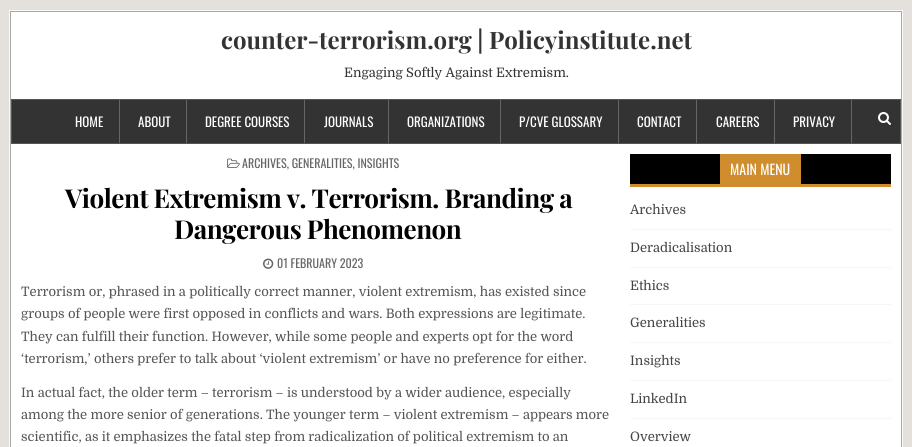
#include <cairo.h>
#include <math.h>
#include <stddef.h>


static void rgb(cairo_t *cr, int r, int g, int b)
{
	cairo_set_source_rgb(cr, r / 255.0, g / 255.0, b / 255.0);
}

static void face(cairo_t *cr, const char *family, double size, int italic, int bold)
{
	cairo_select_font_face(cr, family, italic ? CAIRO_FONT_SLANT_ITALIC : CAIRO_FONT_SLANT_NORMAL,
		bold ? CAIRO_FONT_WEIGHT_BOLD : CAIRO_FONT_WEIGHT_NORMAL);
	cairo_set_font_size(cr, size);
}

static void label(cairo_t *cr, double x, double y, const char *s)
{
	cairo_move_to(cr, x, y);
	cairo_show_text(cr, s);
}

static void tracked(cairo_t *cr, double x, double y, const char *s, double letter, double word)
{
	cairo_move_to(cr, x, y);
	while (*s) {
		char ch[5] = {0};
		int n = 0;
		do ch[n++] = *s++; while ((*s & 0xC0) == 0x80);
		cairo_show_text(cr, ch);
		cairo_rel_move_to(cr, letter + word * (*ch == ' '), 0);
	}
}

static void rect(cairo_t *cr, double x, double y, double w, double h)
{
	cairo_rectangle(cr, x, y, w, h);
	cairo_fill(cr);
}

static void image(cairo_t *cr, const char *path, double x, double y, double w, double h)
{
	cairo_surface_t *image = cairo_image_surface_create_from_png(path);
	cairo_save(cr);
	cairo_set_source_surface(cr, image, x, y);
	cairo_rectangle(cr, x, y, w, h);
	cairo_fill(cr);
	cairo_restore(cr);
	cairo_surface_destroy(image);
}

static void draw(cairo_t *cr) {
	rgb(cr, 228, 224, 219);
	cairo_paint(cr);
	cairo_rectangle(cr, 9.5, 10.5, 893, 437);
	rgb(cr, 249, 249, 249);
	cairo_set_line_width(cr, 1);
	cairo_stroke(cr);
	cairo_rectangle(cr, 10.5, 11.5, 891, 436);
	rgb(cr, 168, 168, 168);
	cairo_stroke(cr);
	rgb(cr, 255, 255, 255);
	rect(cr, 11, 12, 890, 87);
	face(cr, "Playfair Display", 24, 0, 1);
	rgb(cr, 51, 51, 51);
	label(cr, 221, 49, "counter-terrorism.org | Policyinstitute.net");
	face(cr, "Domine", 13, 0, 0);
	label(cr, 344, 77, "Engaging Softly Against Extremism.");
	cairo_rectangle(cr, 11.5, 99.5, 889, 44);
	cairo_fill_preserve(cr);
	rgb(cr, 85, 85, 85);
	cairo_stroke(cr);
	rgb(cr, 102, 102, 102);
	rect(cr, 119, 100, 1, 43);
	face(cr, "Oswald", 13, 0, 0);
	rgb(cr, 255, 255, 255);
	label(cr, 75, 127, "HOME");
	rgb(cr, 102, 102, 102);
	rect(cr, 186, 100, 1, 43);
	rgb(cr, 255, 255, 255);
	label(cr, 138, 127, "ABOUT");
	rgb(cr, 102, 102, 102);
	rect(cr, 304, 100, 1, 43);
	rgb(cr, 255, 255, 255);
	label(cr, 205, 127, "DEGREE COURSES");
	rgb(cr, 102, 102, 102);
	rect(cr, 388, 100, 1, 43);
	rgb(cr, 255, 255, 255);
	label(cr, 324, 127, "JOURNALS");
	rgb(cr, 102, 102, 102);
	rect(cr, 500, 100, 1, 43);
	rgb(cr, 255, 255, 255);
	label(cr, 407, 127, "ORGANIZATIONS");
	rgb(cr, 102, 102, 102);
	rect(cr, 618, 100, 1, 43);
	rgb(cr, 255, 255, 255);
	label(cr, 519, 127, "P/CVE GLOSSARY");
	rgb(cr, 102, 102, 102);
	rect(cr, 696, 100, 1, 43);
	rgb(cr, 255, 255, 255);
	label(cr, 637, 127, "CONTACT");
	rgb(cr, 102, 102, 102);
	rect(cr, 774, 100, 1, 43);
	rgb(cr, 255, 255, 255);
	label(cr, 716, 127, "CAREERS");
	rgb(cr, 102, 102, 102);
	rect(cr, 851, 100, 1, 43);
	rgb(cr, 255, 255, 255);
	label(cr, 793, 127, "PRIVACY");
	image(cr, "image0.png", 878, 112, 13, 13);
	rect(cr, 11, 144, 890, 303);
	image(cr, "image1.png", 227, 158, 13, 10);
	face(cr, "Oswald", 12, 0, 0);
	rgb(cr, 102, 102, 102);
	label(cr, 242, 168, "ARCHIVES, GENERALITIES, INSIGHTS");
	face(cr, "Playfair Display", 26, 0, 1);
	rgb(cr, 0, 0, 0);
	tracked(cr, 65, 208, "Violent Extremism v. Terrorism. Branding a", -0.5, 0);
	tracked(cr, 174, 239, "Dangerous Phenomenon", -0.5, 0);
	image(cr, "image2.png", 263, 258, 11, 11);
	face(cr, "Oswald", 12, 0, 0);
	rgb(cr, 102, 102, 102);
	label(cr, 277, 268, "01 FEBRUARY 2023");
	face(cr, "Domine", 13, 0, 0);
	rgb(cr, 85, 85, 85);
	label(cr, 21, 296, "Terrorism or, phrased in a politically correct manner, violent extremism, has existed since");
	label(cr, 21, 318, "groups of people were first opposed in conflicts and wars. Both expressions are legitimate.");
	label(cr, 21, 341, "They can fulfill their function. However, while some people and experts opt for the word");
	label(cr, 21, 363, "‘terrorism,’ others prefer to talk about ‘violent extremism’ or have no preference for either.");
	label(cr, 21, 397, "In actual fact, the older term – terrorism – is understood by a wider audience, especially");
	label(cr, 21, 419, "among the more senior of generations. The younger term – violent extremism – appears more");
	label(cr, 21, 441, "scientific, as it emphasizes the fatal step from radicalization of political extremism to an");
	rgb(cr, 0, 0, 0);
	rect(cr, 630, 154, 261, 30);
	rgb(cr, 207, 141, 46);
	rect(cr, 630, 184, 261, 3);
	rect(cr, 720, 154, 81, 30);
	face(cr, "Oswald", 14, 0, 0);
	rgb(cr, 255, 255, 255);
	label(cr, 730, 175, "MAIN MENU");
	cairo_new_path(cr);
	cairo_move_to(cr, 630, 229.5);
	cairo_line_to(cr, 891, 229.5);
	rgb(cr, 238, 238, 238);
	cairo_set_dash(cr, (double[]){1, 1}, 2, 0);
	cairo_stroke(cr);
	face(cr, "Domine", 13, 0, 0);
	rgb(cr, 68, 68, 68);
	label(cr, 630, 214, "Archives");
	cairo_new_path(cr);
	cairo_move_to(cr, 630, 267.5);
	cairo_line_to(cr, 891, 267.5);
	rgb(cr, 238, 238, 238);
	cairo_stroke(cr);
	rgb(cr, 68, 68, 68);
	label(cr, 630, 252, "Deradicalisation");
	cairo_new_path(cr);
	cairo_move_to(cr, 630, 304.5);
	cairo_line_to(cr, 891, 304.5);
	rgb(cr, 238, 238, 238);
	cairo_stroke(cr);
	rgb(cr, 68, 68, 68);
	label(cr, 630, 290, "Ethics");
	cairo_new_path(cr);
	cairo_move_to(cr, 630, 342.5);
	cairo_line_to(cr, 891, 342.5);
	rgb(cr, 238, 238, 238);
	cairo_stroke(cr);
	rgb(cr, 68, 68, 68);
	label(cr, 630, 327, "Generalities");
	cairo_new_path(cr);
	cairo_move_to(cr, 630, 380.5);
	cairo_line_to(cr, 891, 380.5);
	rgb(cr, 238, 238, 238);
	cairo_stroke(cr);
	rgb(cr, 68, 68, 68);
	label(cr, 630, 365, "Insights");
	cairo_new_path(cr);
	cairo_move_to(cr, 630, 418.5);
	cairo_line_to(cr, 891, 418.5);
	rgb(cr, 238, 238, 238);
	cairo_stroke(cr);
	rgb(cr, 68, 68, 68);
	label(cr, 630, 403, "LinkedIn");
	label(cr, 630, 441, "Overview");
}

int main(void) {
	cairo_surface_t *surface = cairo_image_surface_create(CAIRO_FORMAT_RGB24, 912, 447);
	cairo_t *cr = cairo_create(surface);
	cairo_font_options_t *options = cairo_font_options_create();
	cairo_font_options_set_hint_metrics(options, CAIRO_HINT_METRICS_OFF);
	cairo_font_options_set_hint_style(options, CAIRO_HINT_STYLE_NONE);
	cairo_set_font_options(cr, options);
	cairo_set_miter_limit(cr, 4);
	draw(cr);
	cairo_surface_write_to_png(surface, "render.png");
	cairo_font_options_destroy(options);
	cairo_destroy(cr);
	cairo_surface_destroy(surface);
	return 0;
}
